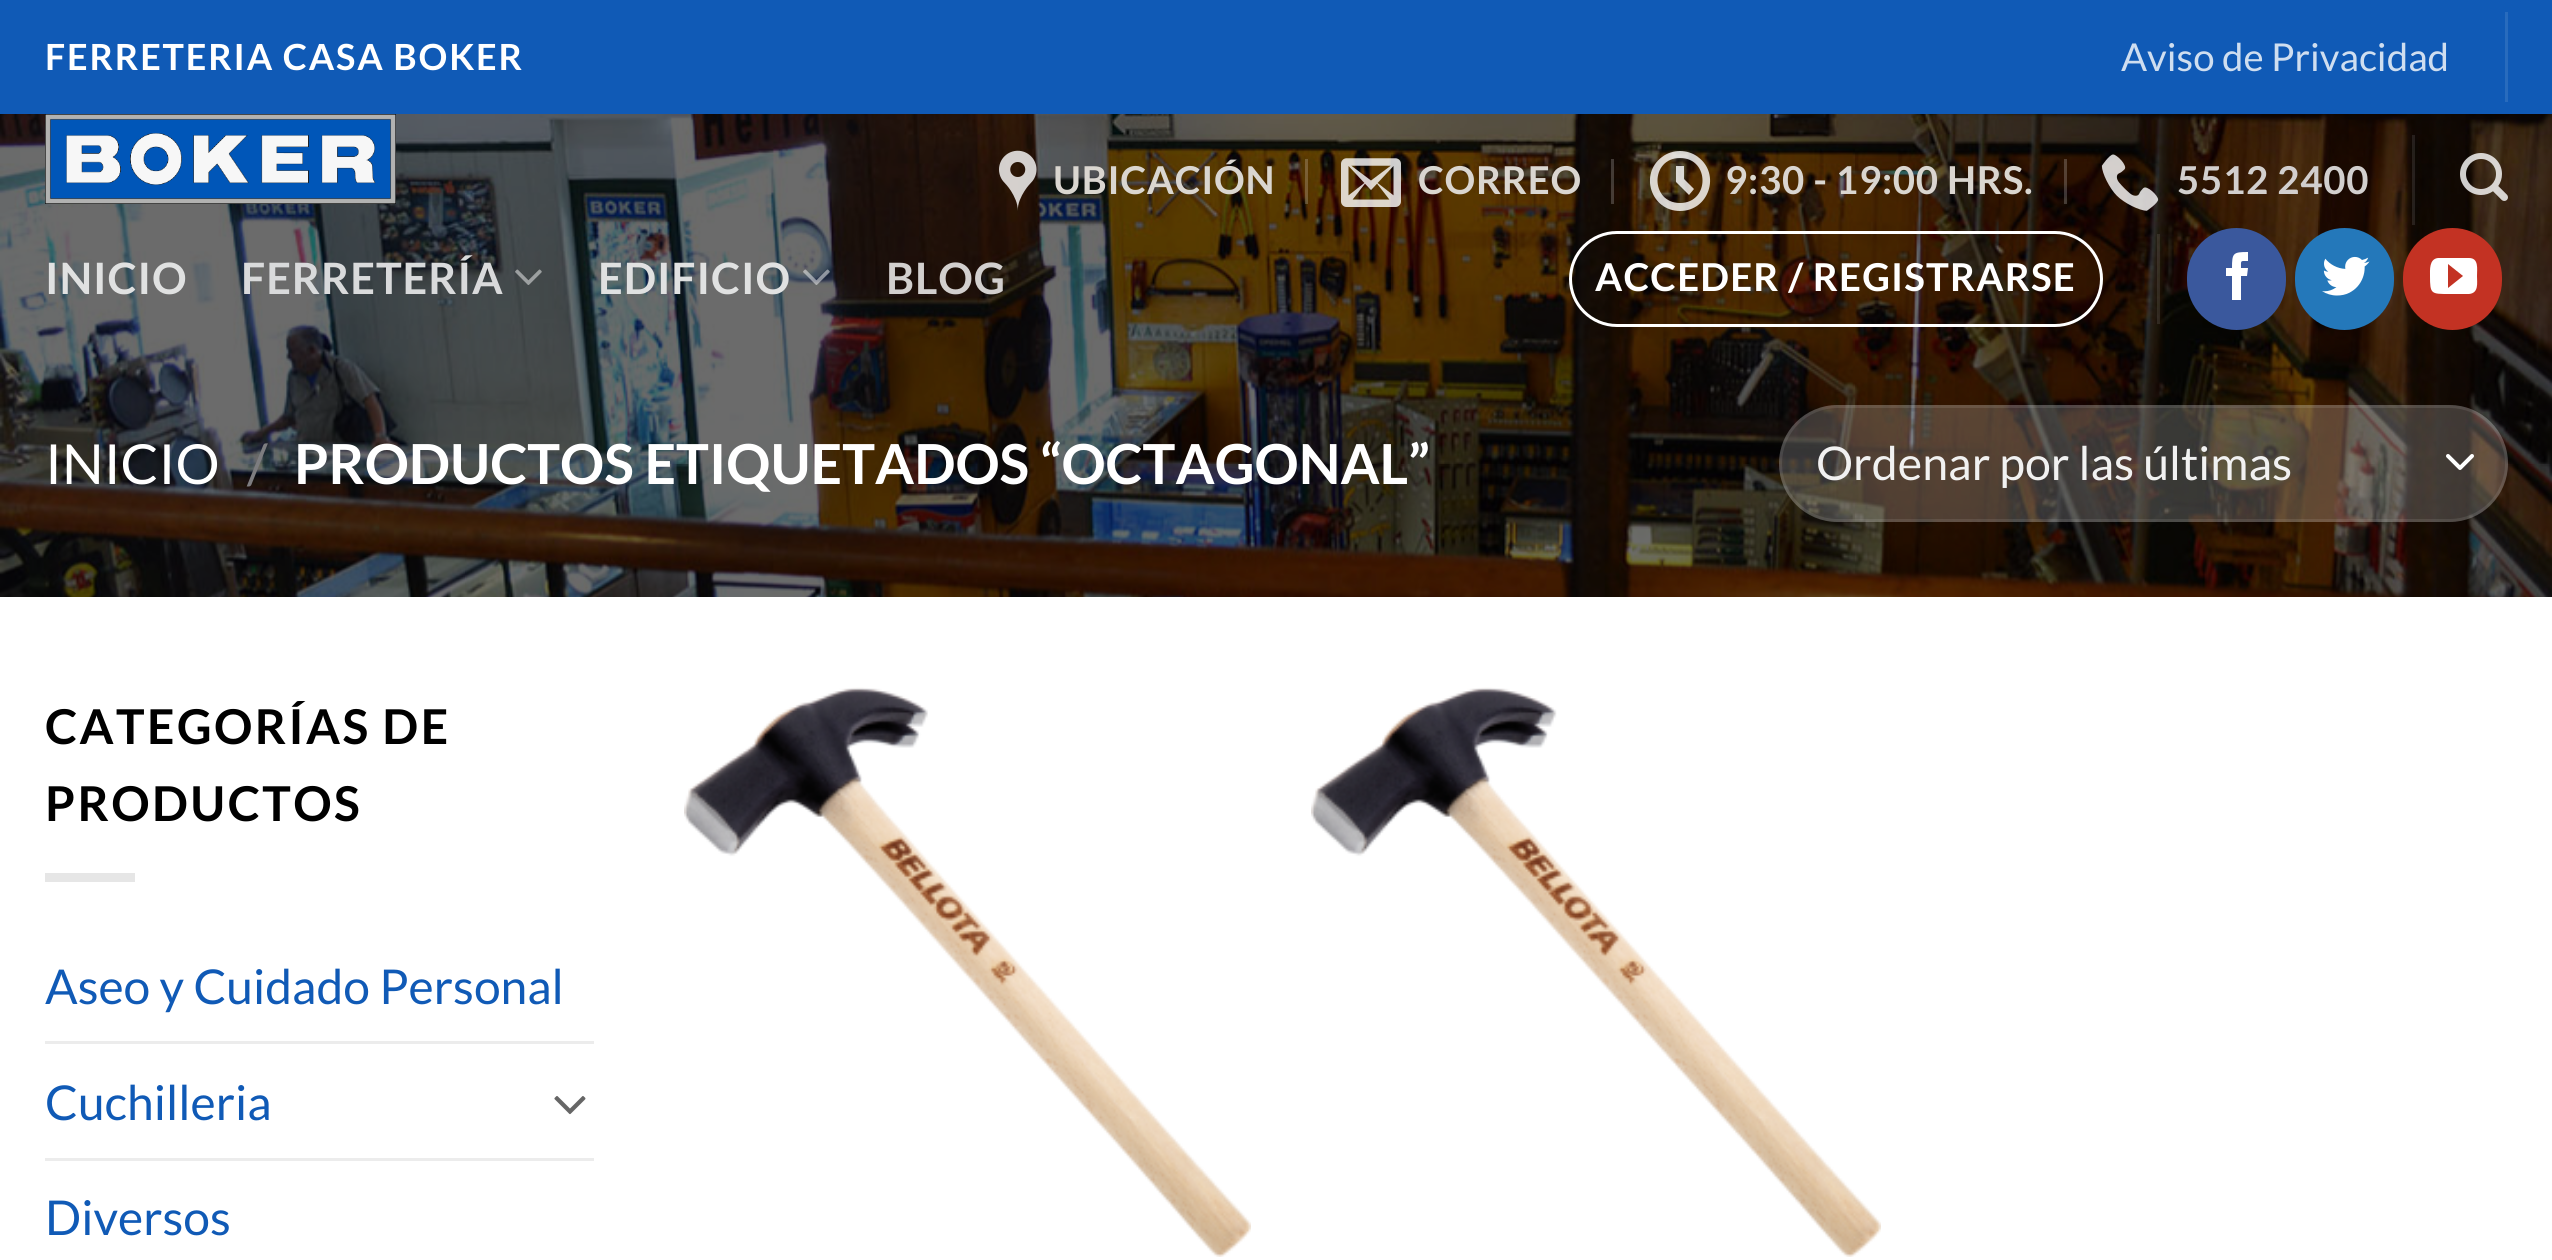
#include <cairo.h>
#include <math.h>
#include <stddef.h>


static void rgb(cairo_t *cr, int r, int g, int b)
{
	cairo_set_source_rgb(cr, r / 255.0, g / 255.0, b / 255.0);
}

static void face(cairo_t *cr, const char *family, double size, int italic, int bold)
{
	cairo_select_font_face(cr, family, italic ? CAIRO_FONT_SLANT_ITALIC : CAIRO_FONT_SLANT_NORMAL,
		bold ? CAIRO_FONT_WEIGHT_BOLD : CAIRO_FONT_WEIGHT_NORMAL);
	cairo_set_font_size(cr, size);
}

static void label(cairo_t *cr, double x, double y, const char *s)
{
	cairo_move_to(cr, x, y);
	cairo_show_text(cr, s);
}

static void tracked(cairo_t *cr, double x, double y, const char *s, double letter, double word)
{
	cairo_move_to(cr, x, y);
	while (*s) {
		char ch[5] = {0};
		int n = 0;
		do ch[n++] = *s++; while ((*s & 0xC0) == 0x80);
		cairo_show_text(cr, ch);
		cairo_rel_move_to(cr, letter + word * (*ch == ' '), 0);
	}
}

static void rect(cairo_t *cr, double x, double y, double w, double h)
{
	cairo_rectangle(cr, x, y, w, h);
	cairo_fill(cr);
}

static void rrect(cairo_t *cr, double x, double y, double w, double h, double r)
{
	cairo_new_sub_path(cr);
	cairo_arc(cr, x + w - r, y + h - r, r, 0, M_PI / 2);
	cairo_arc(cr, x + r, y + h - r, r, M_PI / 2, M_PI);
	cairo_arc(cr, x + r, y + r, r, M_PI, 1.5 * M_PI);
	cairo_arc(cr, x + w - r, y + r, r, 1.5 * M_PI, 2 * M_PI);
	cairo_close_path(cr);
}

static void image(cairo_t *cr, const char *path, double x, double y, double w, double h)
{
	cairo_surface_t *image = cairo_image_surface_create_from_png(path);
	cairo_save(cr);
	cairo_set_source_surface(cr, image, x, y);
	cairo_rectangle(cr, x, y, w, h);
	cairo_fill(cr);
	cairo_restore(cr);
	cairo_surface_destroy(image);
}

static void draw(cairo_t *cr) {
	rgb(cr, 255, 255, 255);
	cairo_paint(cr);
	rgb(cr, 16, 90, 182);
	rect(cr, 0, 0, 2552, 114);
	face(cr, "Lato", 36, 0, 1);
	rgb(cr, 255, 255, 255);
	tracked(cr, 45, 70, "FERRETERIA CASA BOKER", 1.8, 0);
	face(cr, "Lato", 38.4, 0, 0);
	rgb(cr, 207, 222, 240);
	label(cr, 2121, 71, "Aviso de Privacidad");
	rgb(cr, 40, 107, 189);
	rect(cr, 2505, 12, 3, 90);
	image(cr, "image8.png", 0, 114, 2552, 483);
	image(cr, "image0.png", 45, 114, 351, 90);
	image(cr, "image1.png", 999, 150, 38, 61);
	face(cr, "Lato", 38.4, 0, 1);
	rgb(cr, 218, 214, 208);
	tracked(cr, 1053, 194, "UBICACIÓN", 0.75, 0);
	cairo_set_source_rgba(cr, 1, 1, 1, 0.2);
	rect(cr, 1305, 159, 3, 45);
	image(cr, "image2.png", 1341, 158, 60, 49);
	rgb(cr, 218, 214, 208);
	tracked(cr, 1418, 194, "CORREO", 0.75, 0);
	cairo_set_source_rgba(cr, 1, 1, 1, 0.2);
	rect(cr, 1611, 159, 3, 45);
	cairo_set_source_rgba(cr, 1, 1, 1, 0.8);
	cairo_new_path(cr);
	cairo_move_to(cr, 1689, 195);
	cairo_line_to(cr, 1676, 182);
	cairo_line_to(cr, 1676, 166);
	cairo_line_to(cr, 1684, 166);
	cairo_line_to(cr, 1684, 179);
	cairo_line_to(cr, 1694, 189);
	cairo_close_path(cr);
	cairo_move_to(cr, 1680, 151);
	cairo_curve_to(cr, 1674, 151, 1667, 153, 1662, 157);
	cairo_curve_to(cr, 1639, 174, 1651, 211, 1680, 211);
	cairo_curve_to(cr, 1709, 211, 1721, 174, 1698, 157);
	cairo_curve_to(cr, 1693, 153, 1686, 151, 1680, 151);
	cairo_close_path(cr);
	cairo_move_to(cr, 1680, 203);
	cairo_curve_to(cr, 1650, 203, 1650, 158, 1680, 158);
	cairo_curve_to(cr, 1710, 158, 1710, 203, 1680, 203);
	cairo_close_path(cr);
	cairo_fill(cr);
	rgb(cr, 218, 214, 208);
	tracked(cr, 1725, 194, "9:30 - 19:00 HRS.", 0.75, 0);
	cairo_set_source_rgba(cr, 1, 1, 1, 0.2);
	rect(cr, 2064, 159, 3, 45);
	image(cr, "image3.png", 2101, 154, 58, 57);
	rgb(cr, 210, 207, 206);
	tracked(cr, 2177, 194, "5512 2400", 0.75, 0);
	cairo_set_source_rgba(cr, 1, 1, 1, 0.1);
	rect(cr, 2412, 135, 3, 90);
	image(cr, "image4.png", 2460, 153, 48, 48);
	face(cr, "Lato", 43.25, 0, 1);
	rgb(cr, 224, 225, 225);
	tracked(cr, 45, 294, "INICIO", 0.9, 0);
	rgb(cr, 217, 218, 219);
	tracked(cr, 241, 294, "FERRETERÍA", 0.9, 0);
	image(cr, "image5.png", 515, 269, 27, 16);
	rgb(cr, 224, 225, 225);
	tracked(cr, 598, 294, "EDIFICIO", 0.9, 0);
	image(cr, "image6.png", 803, 269, 27, 16);
	rgb(cr, 210, 207, 206);
	tracked(cr, 886, 294, "BLOG", 0.9, 0);
	rrect(cr, 1570.5, 232.5, 531, 93, 46.5);
	rgb(cr, 255, 255, 255);
	cairo_set_line_width(cr, 3);
	cairo_stroke(cr);
	face(cr, "Lato", 38.4, 0, 1);
	tracked(cr, 1595, 291, "ACCEDER / REGISTRARSE", 1.15, 0);
	cairo_set_source_rgba(cr, 1, 1, 1, 0.1);
	rect(cr, 2157, 234, 3, 90);
	rgb(cr, 58, 88, 157);
	rrect(cr, 2188.5, 229.5, 96, 99, 48);
	cairo_fill_preserve(cr);
	cairo_stroke(cr);
	rgb(cr, 255, 255, 255);
	cairo_new_path(cr);
	cairo_move_to(cr, 2241, 300);
	cairo_line_to(cr, 2232, 300);
	cairo_line_to(cr, 2232, 276);
	cairo_line_to(cr, 2226, 276);
	cairo_line_to(cr, 2226, 268);
	cairo_line_to(cr, 2232, 268);
	cairo_curve_to(cr, 2232, 253, 2233, 252, 2248, 252);
	cairo_line_to(cr, 2248, 261);
	cairo_curve_to(cr, 2240, 261, 2241, 260, 2241, 268);
	cairo_line_to(cr, 2248, 268);
	cairo_line_to(cr, 2247, 276);
	cairo_line_to(cr, 2241, 276);
	cairo_close_path(cr);
	cairo_fill(cr);
	rgb(cr, 36, 120, 186);
	rrect(cr, 2296.5, 229.5, 96, 99, 48);
	cairo_fill_preserve(cr);
	cairo_stroke(cr);
	image(cr, "image7.png", 2322, 256, 48, 40);
	rgb(cr, 195, 50, 35);
	rrect(cr, 2404.5, 229.5, 96, 99, 48);
	cairo_fill_preserve(cr);
	cairo_stroke(cr);
	rgb(cr, 255, 255, 255);
	cairo_new_path(cr);
	cairo_move_to(cr, 2469, 258);
	cairo_line_to(cr, 2438, 258);
	cairo_curve_to(cr, 2429, 259, 2430, 270, 2430, 276);
	cairo_curve_to(cr, 2430, 294, 2431, 294, 2449, 294);
	cairo_line_to(cr, 2469, 294);
	cairo_curve_to(cr, 2479, 293, 2477, 283, 2477, 276);
	cairo_curve_to(cr, 2477, 269, 2479, 258, 2469, 258);
	cairo_close_path(cr);
	cairo_move_to(cr, 2448, 288);
	cairo_line_to(cr, 2448, 264);
	cairo_line_to(cr, 2463, 276);
	cairo_close_path(cr);
	cairo_fill(cr);
	face(cr, "Lato", 55.2, 0, 0);
	label(cr, 45, 484, "INICIO");
	rgb(cr, 125, 125, 128);
	label(cr, 247, 484, "/");
	face(cr, "Lato", 55.2, 0, 1);
	rgb(cr, 255, 255, 255);
	label(cr, 294, 484, "PRODUCTOS ETIQUETADOS “OCTAGONAL”");
	cairo_set_source_rgba(cr, 1, 1, 1, 0.2);
	rrect(cr, 1779, 405, 729, 117, 58.5);
	cairo_fill(cr);
	cairo_new_path(cr);
	cairo_move_to(cr, 2448, 456);
	cairo_line_to(cr, 2460, 468);
	cairo_line_to(cr, 2472, 456);
	rgb(cr, 255, 255, 255);
	cairo_set_line_width(cr, 4);
	cairo_set_line_cap(cr, CAIRO_LINE_CAP_ROUND);
	cairo_set_line_join(cr, CAIRO_LINE_JOIN_ROUND);
	cairo_stroke(cr);
	rrect(cr, 1780.5, 406.5, 726, 114, 57);
	cairo_set_source_rgba(cr, 1, 1, 1, 0.09);
	cairo_set_line_width(cr, 3);
	cairo_set_line_cap(cr, CAIRO_LINE_CAP_BUTT);
	cairo_set_line_join(cr, CAIRO_LINE_JOIN_MITER);
	cairo_stroke(cr);
	face(cr, "Lato", 46.5, 0, 0);
	rgb(cr, 241, 241, 241);
	label(cr, 1816, 480, "Ordenar por las últimas");
	face(cr, "Lato", 48, 0, 1);
	rgb(cr, 0, 0, 0);
	tracked(cr, 45, 744, "CATEGORÍAS DE", 2.4, 0);
	tracked(cr, 45, 821, "PRODUCTOS", 2.4, 0);
	rgb(cr, 230, 230, 230);
	rect(cr, 45, 873, 90, 9);
	face(cr, "Lato", 48, 0, 0);
	rgb(cr, 16, 90, 182);
	label(cr, 45, 1004, "Aseo y Cuidado Personal");
	rgb(cr, 236, 236, 236);
	rect(cr, 45, 1041, 549, 3);
	rgb(cr, 16, 90, 182);
	label(cr, 45, 1120, "Cuchilleria");
	image(cr, "image9.png", 554, 1096, 32, 19);
	rgb(cr, 236, 236, 236);
	rect(cr, 45, 1158, 549, 3);
	rgb(cr, 16, 90, 182);
	label(cr, 45, 1235, "Diversos");
	image(cr, "image10.png", 684, 687, 567, 570);
	image(cr, "image11.png", 1311, 687, 570, 570);
}

int main(void) {
	cairo_surface_t *surface = cairo_image_surface_create(CAIRO_FORMAT_RGB24, 2552, 1260);
	cairo_t *cr = cairo_create(surface);
	cairo_font_options_t *options = cairo_font_options_create();
	cairo_font_options_set_hint_metrics(options, CAIRO_HINT_METRICS_OFF);
	cairo_font_options_set_hint_style(options, CAIRO_HINT_STYLE_NONE);
	cairo_set_font_options(cr, options);
	cairo_set_miter_limit(cr, 4);
	draw(cr);
	cairo_surface_write_to_png(surface, "render.png");
	cairo_font_options_destroy(options);
	cairo_destroy(cr);
	cairo_surface_destroy(surface);
	return 0;
}
